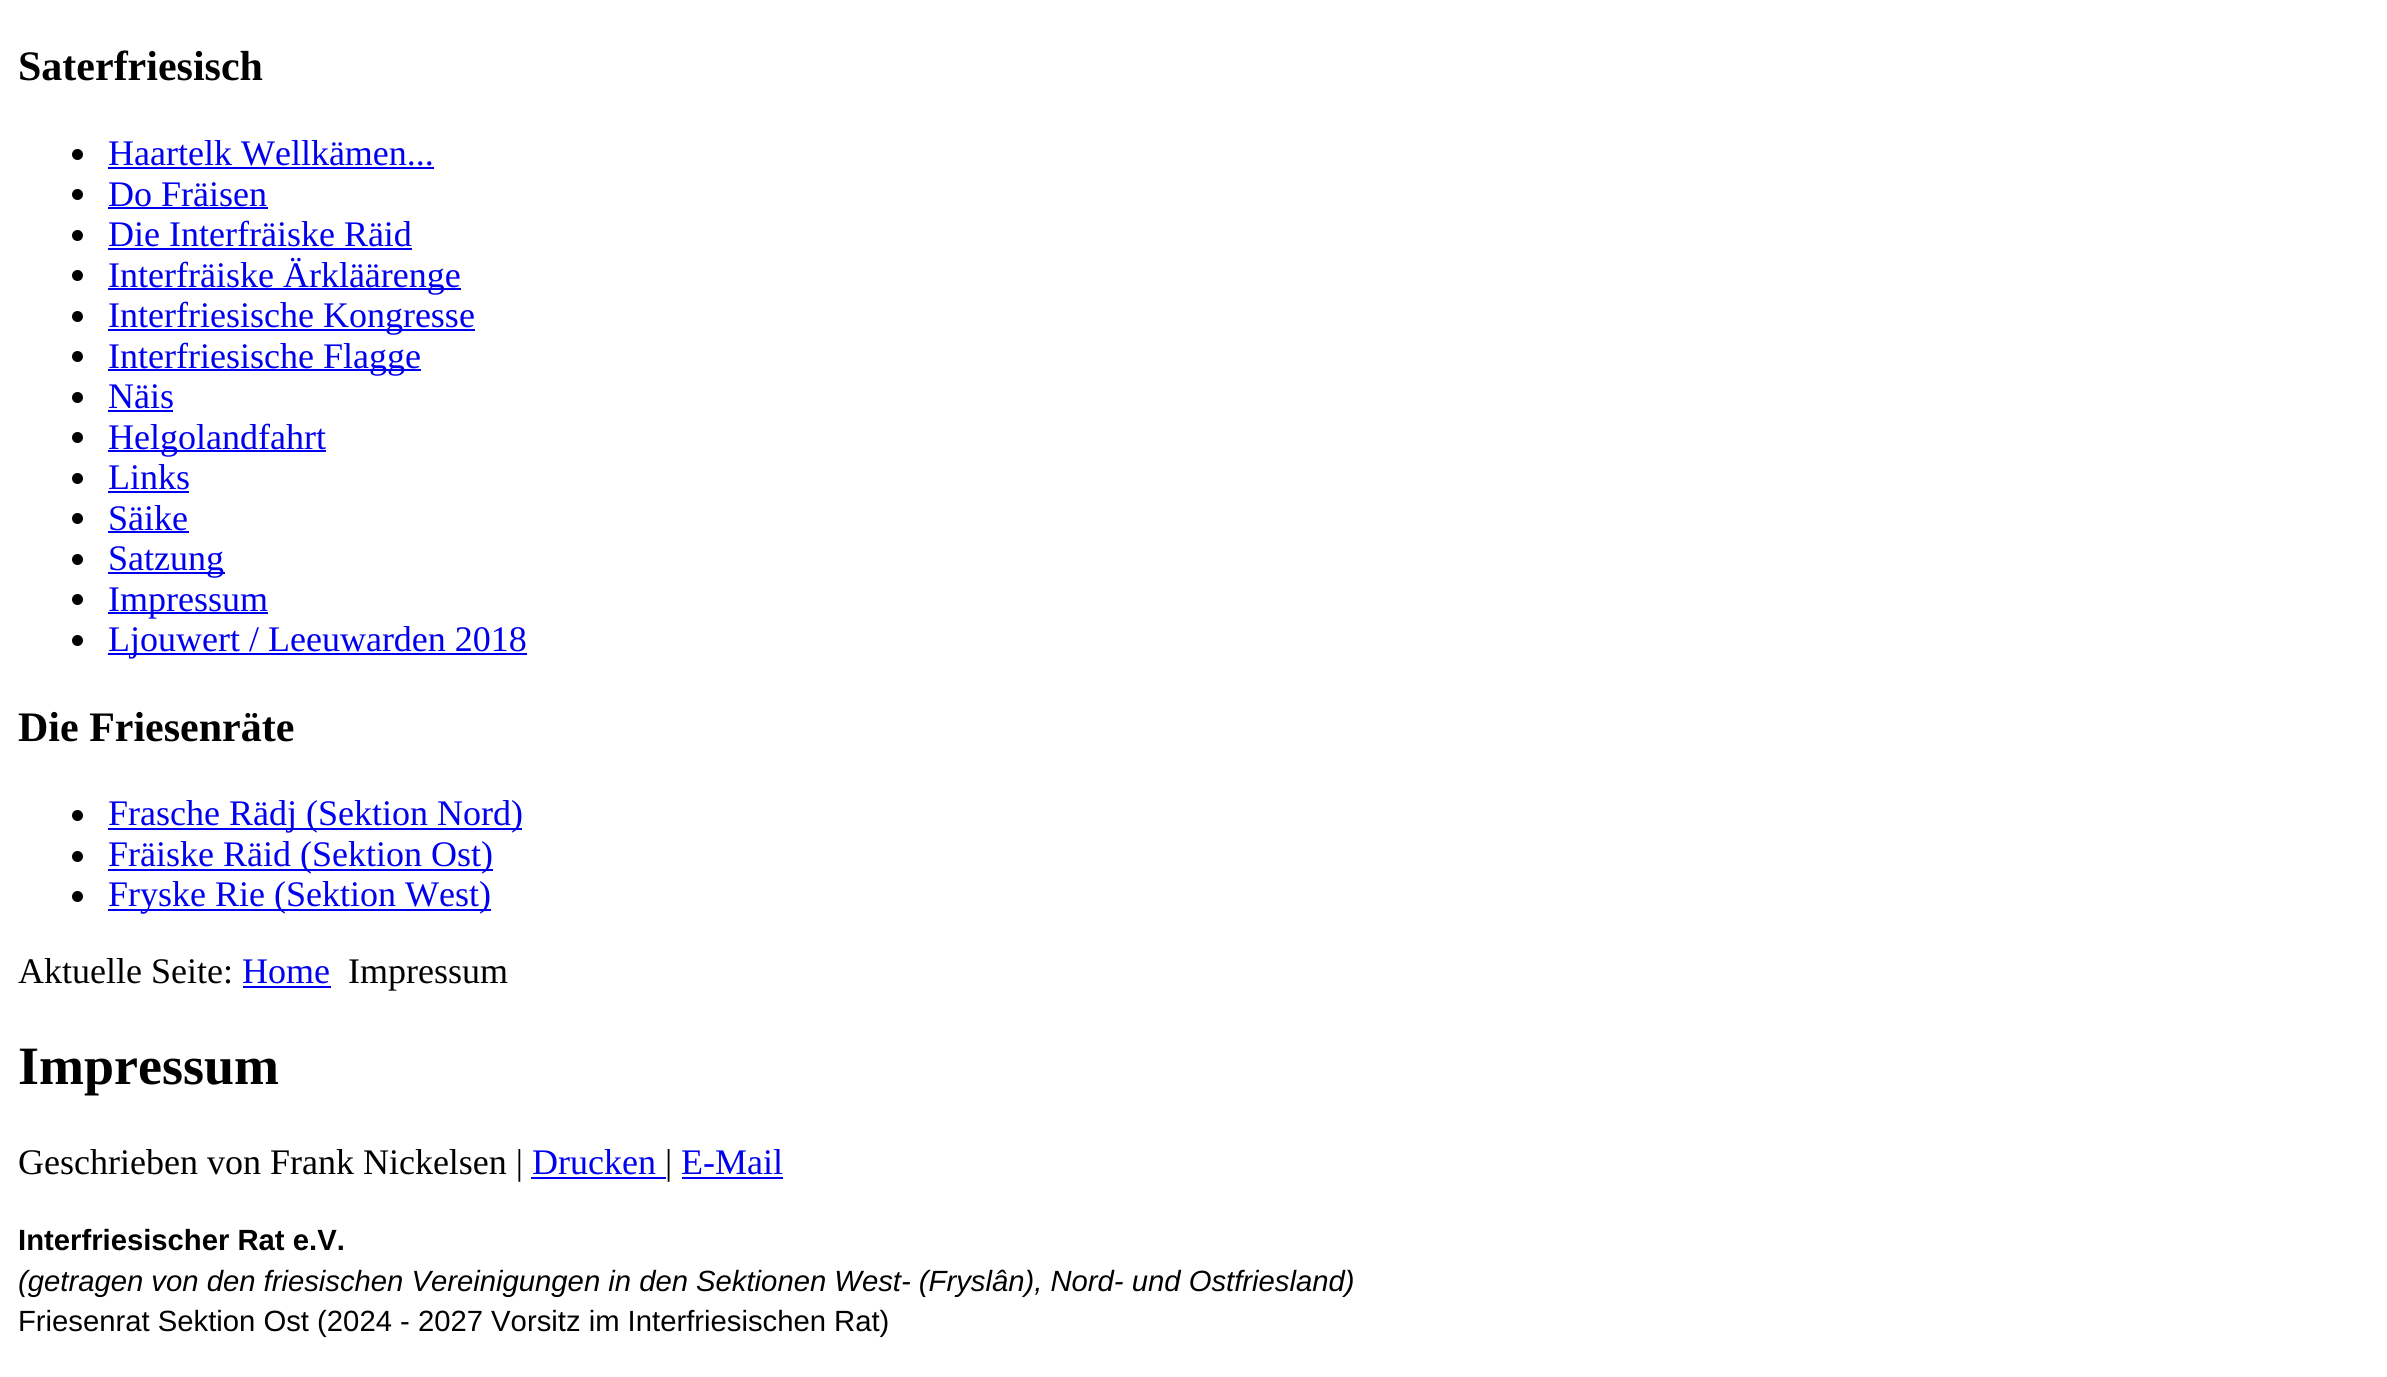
#include <cairo.h>
#include <math.h>
#include <stddef.h>


static void rgb(cairo_t *cr, int r, int g, int b)
{
	cairo_set_source_rgb(cr, r / 255.0, g / 255.0, b / 255.0);
}

static void face(cairo_t *cr, const char *family, double size, int italic, int bold)
{
	cairo_select_font_face(cr, family, italic ? CAIRO_FONT_SLANT_ITALIC : CAIRO_FONT_SLANT_NORMAL,
		bold ? CAIRO_FONT_WEIGHT_BOLD : CAIRO_FONT_WEIGHT_NORMAL);
	cairo_set_font_size(cr, size);
}

static void label(cairo_t *cr, double x, double y, const char *s)
{
	cairo_move_to(cr, x, y);
	cairo_show_text(cr, s);
}

static void rect(cairo_t *cr, double x, double y, double w, double h)
{
	cairo_rectangle(cr, x, y, w, h);
	cairo_fill(cr);
}

static void draw(cairo_t *cr) {
	rgb(cr, 255, 255, 255);
	cairo_paint(cr);
	face(cr, "Liberation Serif", 42, 0, 1);
	rgb(cr, 0, 0, 0);
	label(cr, 18, 80, "Saterfriesisch");
	cairo_new_path(cr);
	cairo_arc(cr, 77.5, 154.5, 5.5, 0, 2 * M_PI);
	cairo_fill(cr);
	face(cr, "Liberation Serif", 36, 0, 0);
	rgb(cr, 0, 0, 238);
	label(cr, 108, 165, "Haartelk Wellkämen...");
	rect(cr, 108, 167, 326, 2);
	rgb(cr, 0, 0, 0);
	cairo_new_path(cr);
	cairo_arc(cr, 77.5, 194.5, 5.5, 0, 2 * M_PI);
	cairo_fill(cr);
	rgb(cr, 0, 0, 238);
	label(cr, 108, 206, "Do Fräisen");
	rect(cr, 108, 207, 160, 2);
	rgb(cr, 0, 0, 0);
	cairo_new_path(cr);
	cairo_arc(cr, 77.5, 235.5, 5.5, 0, 2 * M_PI);
	cairo_fill(cr);
	rgb(cr, 0, 0, 238);
	label(cr, 108, 246, "Die Interfräiske Räid");
	rect(cr, 108, 248, 304, 2);
	rgb(cr, 0, 0, 0);
	cairo_new_path(cr);
	cairo_arc(cr, 77.5, 275.5, 5.5, 0, 2 * M_PI);
	cairo_fill(cr);
	rgb(cr, 0, 0, 238);
	rect(cr, 108, 288, 353, 2);
	label(cr, 108, 287, "Interfräiske Ärkläärenge");
	rgb(cr, 0, 0, 0);
	cairo_new_path(cr);
	cairo_arc(cr, 77.5, 316.5, 5.5, 0, 2 * M_PI);
	cairo_fill(cr);
	rgb(cr, 0, 0, 238);
	rect(cr, 108, 329, 367, 2);
	label(cr, 108, 327, "Interfriesische Kongresse");
	rgb(cr, 0, 0, 0);
	cairo_new_path(cr);
	cairo_arc(cr, 77.5, 356.5, 5.5, 0, 2 * M_PI);
	cairo_fill(cr);
	rgb(cr, 0, 0, 238);
	rect(cr, 108, 369, 313, 2);
	label(cr, 108, 368, "Interfriesische Flagge");
	rgb(cr, 0, 0, 0);
	cairo_new_path(cr);
	cairo_arc(cr, 77.5, 397.5, 5.5, 0, 2 * M_PI);
	cairo_fill(cr);
	rgb(cr, 0, 0, 238);
	label(cr, 108, 408, "Näis");
	rect(cr, 108, 410, 65, 2);
	rgb(cr, 0, 0, 0);
	cairo_new_path(cr);
	cairo_arc(cr, 77.5, 437.5, 5.5, 0, 2 * M_PI);
	cairo_fill(cr);
	rgb(cr, 0, 0, 238);
	rect(cr, 108, 450, 218, 2);
	label(cr, 108, 449, "Helgolandfahrt");
	rgb(cr, 0, 0, 0);
	cairo_new_path(cr);
	cairo_arc(cr, 77.5, 478.5, 5.5, 0, 2 * M_PI);
	cairo_fill(cr);
	rgb(cr, 0, 0, 238);
	label(cr, 108, 489, "Links");
	rect(cr, 108, 491, 81, 2);
	rgb(cr, 0, 0, 0);
	cairo_new_path(cr);
	cairo_arc(cr, 77.5, 518.5, 5.5, 0, 2 * M_PI);
	cairo_fill(cr);
	rgb(cr, 0, 0, 238);
	label(cr, 108, 530, "Säike");
	rect(cr, 108, 531, 81, 2);
	rgb(cr, 0, 0, 0);
	cairo_new_path(cr);
	cairo_arc(cr, 77.5, 559.5, 5.5, 0, 2 * M_PI);
	cairo_fill(cr);
	rgb(cr, 0, 0, 238);
	rect(cr, 108, 572, 117, 2);
	label(cr, 108, 570, "Satzung");
	rgb(cr, 0, 0, 0);
	cairo_new_path(cr);
	cairo_arc(cr, 77.5, 599.5, 5.5, 0, 2 * M_PI);
	cairo_fill(cr);
	rgb(cr, 0, 0, 238);
	rect(cr, 108, 612, 160, 2);
	label(cr, 108, 611, "Impressum");
	rgb(cr, 0, 0, 0);
	cairo_new_path(cr);
	cairo_arc(cr, 77.5, 640.5, 5.5, 0, 2 * M_PI);
	cairo_fill(cr);
	rgb(cr, 0, 0, 238);
	rect(cr, 108, 653, 419, 2);
	label(cr, 108, 651, "Ljouwert / Leeuwarden 2018");
	face(cr, "Liberation Serif", 42, 0, 1);
	rgb(cr, 0, 0, 0);
	label(cr, 18, 741, "Die Friesenräte");
	cairo_new_path(cr);
	cairo_arc(cr, 77.5, 815.5, 5.5, 0, 2 * M_PI);
	cairo_fill(cr);
	rgb(cr, 0, 0, 238);
	rect(cr, 108, 828, 414, 2);
	face(cr, "Liberation Serif", 36, 0, 0);
	label(cr, 108, 825, "Frasche Rädj (Sektion Nord)");
	rgb(cr, 0, 0, 0);
	cairo_new_path(cr);
	cairo_arc(cr, 77.5, 856.5, 5.5, 0, 2 * M_PI);
	cairo_fill(cr);
	rgb(cr, 0, 0, 238);
	rect(cr, 108, 869, 385, 2);
	label(cr, 108, 866, "Fräiske Räid (Sektion Ost)");
	rgb(cr, 0, 0, 0);
	cairo_new_path(cr);
	cairo_arc(cr, 77.5, 896.5, 5.5, 0, 2 * M_PI);
	cairo_fill(cr);
	rgb(cr, 0, 0, 238);
	rect(cr, 108, 909, 383, 2);
	label(cr, 108, 906, "Fryske Rie (Sektion West)");
	rgb(cr, 0, 0, 0);
	label(cr, 18, 983, "Aktuelle Seite:");
	rgb(cr, 0, 0, 238);
	label(cr, 242, 983, "Home");
	rect(cr, 243, 986, 88, 2);
	rgb(cr, 0, 0, 0);
	label(cr, 348, 983, "Impressum");
	face(cr, "Liberation Serif", 54, 0, 1);
	label(cr, 18, 1084, "Impressum");
	face(cr, "Liberation Serif", 36, 0, 0);
	label(cr, 18, 1174, "Geschrieben von Frank Nickelsen |");
	rgb(cr, 0, 0, 238);
	label(cr, 532, 1174, "Drucken");
	rect(cr, 531, 1177, 135, 2);
	rgb(cr, 0, 0, 0);
	label(cr, 665, 1174, "|");
	rgb(cr, 0, 0, 238);
	label(cr, 681, 1174, "E-Mail");
	rect(cr, 682, 1177, 101, 2);
	face(cr, "Liberation Sans", 29.25, 0, 1);
	rgb(cr, 0, 0, 0);
	label(cr, 18, 1250, "Interfriesischer Rat e.V.");
	face(cr, "Liberation Sans", 29.25, 1, 0);
	label(cr, 18, 1291, "(getragen von den friesischen Vereinigungen in den Sektionen West- (Fryslân), Nord- und Ostfriesland)");
	face(cr, "Liberation Sans", 29.25, 0, 0);
	label(cr, 18, 1331, "Friesenrat Sektion Ost (2024 - 2027 Vorsitz im Interfriesischen Rat)");
}

int main(void) {
	cairo_surface_t *surface = cairo_image_surface_create(CAIRO_FORMAT_RGB24, 2387, 1377);
	cairo_t *cr = cairo_create(surface);
	cairo_font_options_t *options = cairo_font_options_create();
	cairo_font_options_set_hint_metrics(options, CAIRO_HINT_METRICS_OFF);
	cairo_font_options_set_hint_style(options, CAIRO_HINT_STYLE_NONE);
	cairo_set_font_options(cr, options);
	cairo_set_miter_limit(cr, 4);
	draw(cr);
	cairo_surface_write_to_png(surface, "render.png");
	cairo_font_options_destroy(options);
	cairo_destroy(cr);
	cairo_surface_destroy(surface);
	return 0;
}
